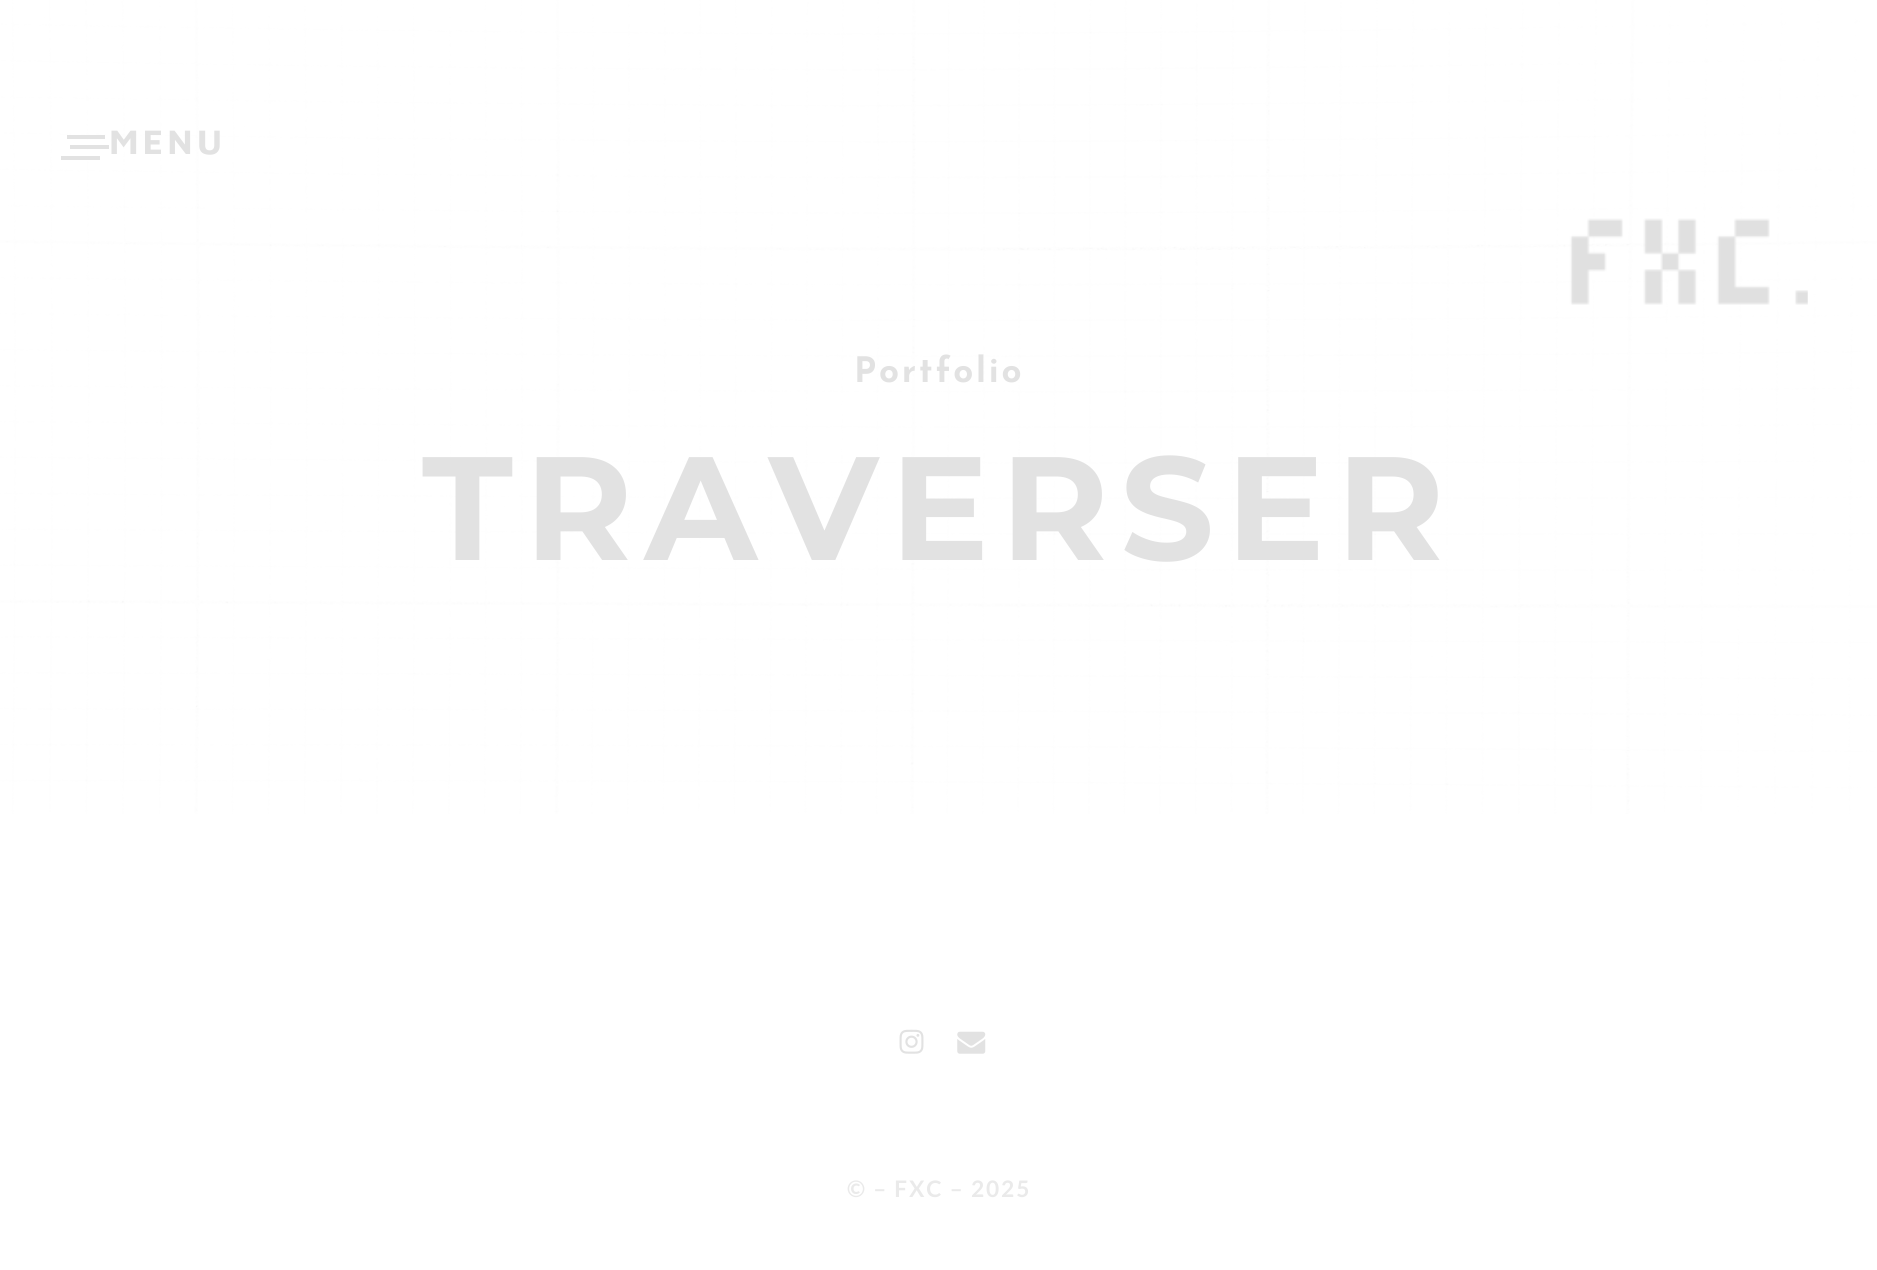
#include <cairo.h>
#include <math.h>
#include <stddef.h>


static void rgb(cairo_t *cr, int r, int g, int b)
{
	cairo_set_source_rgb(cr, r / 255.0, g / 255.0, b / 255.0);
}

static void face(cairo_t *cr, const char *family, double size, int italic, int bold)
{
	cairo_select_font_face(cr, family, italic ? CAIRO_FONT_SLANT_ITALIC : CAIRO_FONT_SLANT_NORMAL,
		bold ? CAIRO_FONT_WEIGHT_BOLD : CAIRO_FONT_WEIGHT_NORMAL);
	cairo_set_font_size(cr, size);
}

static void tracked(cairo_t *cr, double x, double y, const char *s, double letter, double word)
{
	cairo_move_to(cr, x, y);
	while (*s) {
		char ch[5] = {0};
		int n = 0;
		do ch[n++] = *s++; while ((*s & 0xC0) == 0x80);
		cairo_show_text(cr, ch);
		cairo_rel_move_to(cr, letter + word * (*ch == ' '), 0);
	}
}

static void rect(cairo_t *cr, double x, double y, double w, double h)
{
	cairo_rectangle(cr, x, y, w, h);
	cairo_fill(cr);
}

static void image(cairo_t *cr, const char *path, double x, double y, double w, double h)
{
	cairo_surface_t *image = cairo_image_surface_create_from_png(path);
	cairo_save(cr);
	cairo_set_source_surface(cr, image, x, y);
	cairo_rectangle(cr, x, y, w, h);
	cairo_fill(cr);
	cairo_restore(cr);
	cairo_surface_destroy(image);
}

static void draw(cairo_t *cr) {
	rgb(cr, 255, 255, 255);
	cairo_paint(cr);
	image(cr, "image0.png", 0, 0, 1877, 814);
	rgb(cr, 226, 226, 226);
	rect(cr, 70, 145, 39, 4);
	rect(cr, 67, 135, 38, 4);
	rect(cr, 61, 156, 39, 4);
	face(cr, "Maven Pro", 35, 0, 1);
	tracked(cr, 109, 154, "MENU", 4, 0);
	image(cr, "image1.png", 1569, 218, 239, 87);
	face(cr, "Josefin Sans", 35, 0, 1);
	tracked(cr, 854, 382, "Portfolio", 2.75, 0);
	face(cr, "Montserrat", 147, 0, 1);
	tracked(cr, 422, 560, "TRAVERSER", 11.75, 0);
	image(cr, "image2.png", 899, 1029, 25, 25);
	image(cr, "image3.png", 957, 1031, 29, 23);
	face(cr, "Lato", 22.75, 0, 1);
	rgb(cr, 234, 234, 234);
	tracked(cr, 847, 1197, "© – FXC – 2025", 1.9, 0);
}

int main(void) {
	cairo_surface_t *surface = cairo_image_surface_create(CAIRO_FORMAT_RGB24, 1877, 1270);
	cairo_t *cr = cairo_create(surface);
	cairo_font_options_t *options = cairo_font_options_create();
	cairo_font_options_set_hint_metrics(options, CAIRO_HINT_METRICS_OFF);
	cairo_font_options_set_hint_style(options, CAIRO_HINT_STYLE_NONE);
	cairo_set_font_options(cr, options);
	cairo_set_miter_limit(cr, 4);
	draw(cr);
	cairo_surface_write_to_png(surface, "render.png");
	cairo_font_options_destroy(options);
	cairo_destroy(cr);
	cairo_surface_destroy(surface);
	return 0;
}
